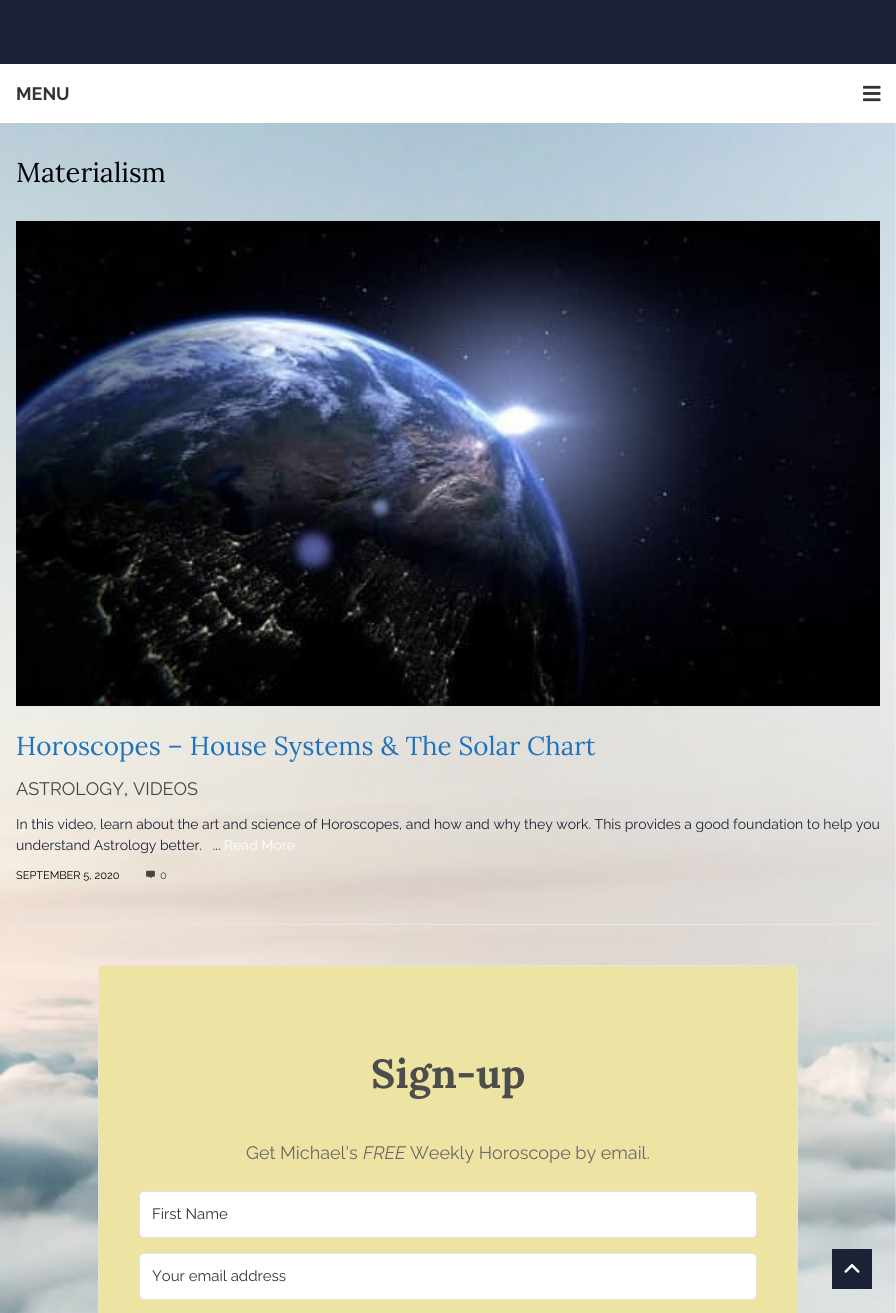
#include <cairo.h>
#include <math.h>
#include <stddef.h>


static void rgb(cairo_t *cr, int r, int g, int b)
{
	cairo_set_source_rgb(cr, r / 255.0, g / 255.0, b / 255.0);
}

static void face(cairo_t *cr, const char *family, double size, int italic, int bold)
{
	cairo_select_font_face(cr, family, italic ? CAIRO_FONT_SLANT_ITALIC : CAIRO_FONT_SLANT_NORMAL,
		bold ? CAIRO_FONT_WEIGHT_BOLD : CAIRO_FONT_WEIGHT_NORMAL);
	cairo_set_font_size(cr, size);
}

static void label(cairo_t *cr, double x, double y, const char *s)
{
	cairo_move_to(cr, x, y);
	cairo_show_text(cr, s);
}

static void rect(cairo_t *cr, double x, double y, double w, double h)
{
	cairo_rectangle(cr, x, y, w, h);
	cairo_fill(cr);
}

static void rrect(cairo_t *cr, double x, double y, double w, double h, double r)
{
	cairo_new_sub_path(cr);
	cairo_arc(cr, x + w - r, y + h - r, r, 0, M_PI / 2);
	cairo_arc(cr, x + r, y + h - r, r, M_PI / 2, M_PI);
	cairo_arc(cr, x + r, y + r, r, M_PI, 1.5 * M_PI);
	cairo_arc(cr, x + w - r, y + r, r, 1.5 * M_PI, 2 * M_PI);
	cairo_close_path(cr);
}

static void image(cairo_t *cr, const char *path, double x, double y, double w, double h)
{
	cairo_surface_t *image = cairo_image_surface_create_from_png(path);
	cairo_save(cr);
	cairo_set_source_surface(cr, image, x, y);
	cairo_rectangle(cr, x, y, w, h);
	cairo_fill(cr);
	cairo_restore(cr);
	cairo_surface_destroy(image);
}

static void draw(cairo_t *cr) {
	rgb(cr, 255, 255, 255);
	cairo_paint(cr);
	image(cr, "image0.png", 0, 123, 896, 1190);
	rgb(cr, 27, 34, 53);
	rect(cr, 0, 0, 896, 64);
	face(cr, "Raleway", 18, 0, 1);
	rgb(cr, 51, 51, 51);
	label(cr, 16, 100, "MENU");
	image(cr, "image1.png", 863, 85, 18, 17);
	face(cr, "Lora", 27.25, 0, 0);
	rgb(cr, 0, 0, 0);
	label(cr, 16, 182, "Materialism");
	rgb(cr, 226, 232, 240);
	rect(cr, 16, 924, 864, 1);
	image(cr, "image2.png", 16, 221, 864, 485);
	face(cr, "Raleway", 45, 0, 0);
	rgb(cr, 118, 113, 127);
	label(cr, 439, 505, "+");
	face(cr, "Lora", 26, 0, 0);
	rgb(cr, 30, 115, 190);
	label(cr, 16, 755, "Horoscopes – House Systems & The Solar Chart");
	face(cr, "Raleway", 18, 0, 0);
	rgb(cr, 68, 68, 68);
	label(cr, 16, 795, "ASTROLOGY");
	rgb(cr, 0, 0, 0);
	label(cr, 124, 795, ",");
	rgb(cr, 68, 68, 68);
	label(cr, 133, 795, "VIDEOS");
	face(cr, "Raleway", 14, 0, 0);
	rgb(cr, 27, 34, 53);
	label(cr, 16, 829, "In this video, learn about the art and science of Horoscopes, and how and why they work. This provides a good foundation to help you");
	label(cr, 16, 850, "understand Astrology better.   ...");
	rgb(cr, 255, 255, 255);
	label(cr, 224, 850, "Read More");
	rgb(cr, 226, 232, 240);
	rect(cr, 132, 868, 1, 16);
	face(cr, "Raleway", 11, 0, 0);
	rgb(cr, 0, 0, 0);
	label(cr, 16, 879, "SEPTEMBER 5, 2020");
	image(cr, "image3.png", 146, 870, 9, 9);
	rgb(cr, 68, 68, 68);
	label(cr, 160, 879, "0");
	rgb(cr, 237, 228, 163);
	rrect(cr, 98.5, 965.5, 699, 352, 3.5);
	cairo_fill_preserve(cr);
	rgb(cr, 227, 227, 227);
	cairo_set_line_width(cr, 1);
	cairo_stroke(cr);
	face(cr, "Lora", 40.5, 0, 1);
	rgb(cr, 77, 77, 77);
	label(cr, 371, 1088, "Sign-up");
	face(cr, "Raleway", 18, 0, 0);
	rgb(cr, 104, 104, 104);
	label(cr, 246, 1159, "Get Michael's");
	face(cr, "Raleway", 18, 1, 0);
	label(cr, 363, 1159, "FREE");
	face(cr, "Raleway", 18, 0, 0);
	label(cr, 410, 1159, "Weekly Horoscope by email.");
	rgb(cr, 255, 255, 255);
	rrect(cr, 139.5, 1191.5, 617, 46, 4.5);
	cairo_fill_preserve(cr);
	rgb(cr, 227, 227, 227);
	cairo_stroke(cr);
	face(cr, "Raleway", 15, 0, 0);
	rgb(cr, 51, 51, 51);
	label(cr, 152, 1219, "First Name");
	rgb(cr, 255, 255, 255);
	rrect(cr, 139.5, 1253.5, 617, 46, 4.5);
	cairo_fill_preserve(cr);
	rgb(cr, 227, 227, 227);
	cairo_stroke(cr);
	rgb(cr, 51, 51, 51);
	label(cr, 152, 1281, "Your email address");
	rgb(cr, 27, 34, 53);
	rect(cr, 832, 1249, 40, 40);
	image(cr, "image4.png", 844, 1264, 16, 9);
}

int main(void) {
	cairo_surface_t *surface = cairo_image_surface_create(CAIRO_FORMAT_RGB24, 896, 1313);
	cairo_t *cr = cairo_create(surface);
	cairo_font_options_t *options = cairo_font_options_create();
	cairo_font_options_set_hint_metrics(options, CAIRO_HINT_METRICS_OFF);
	cairo_font_options_set_hint_style(options, CAIRO_HINT_STYLE_NONE);
	cairo_set_font_options(cr, options);
	cairo_set_miter_limit(cr, 4);
	draw(cr);
	cairo_surface_write_to_png(surface, "render.png");
	cairo_font_options_destroy(options);
	cairo_destroy(cr);
	cairo_surface_destroy(surface);
	return 0;
}
